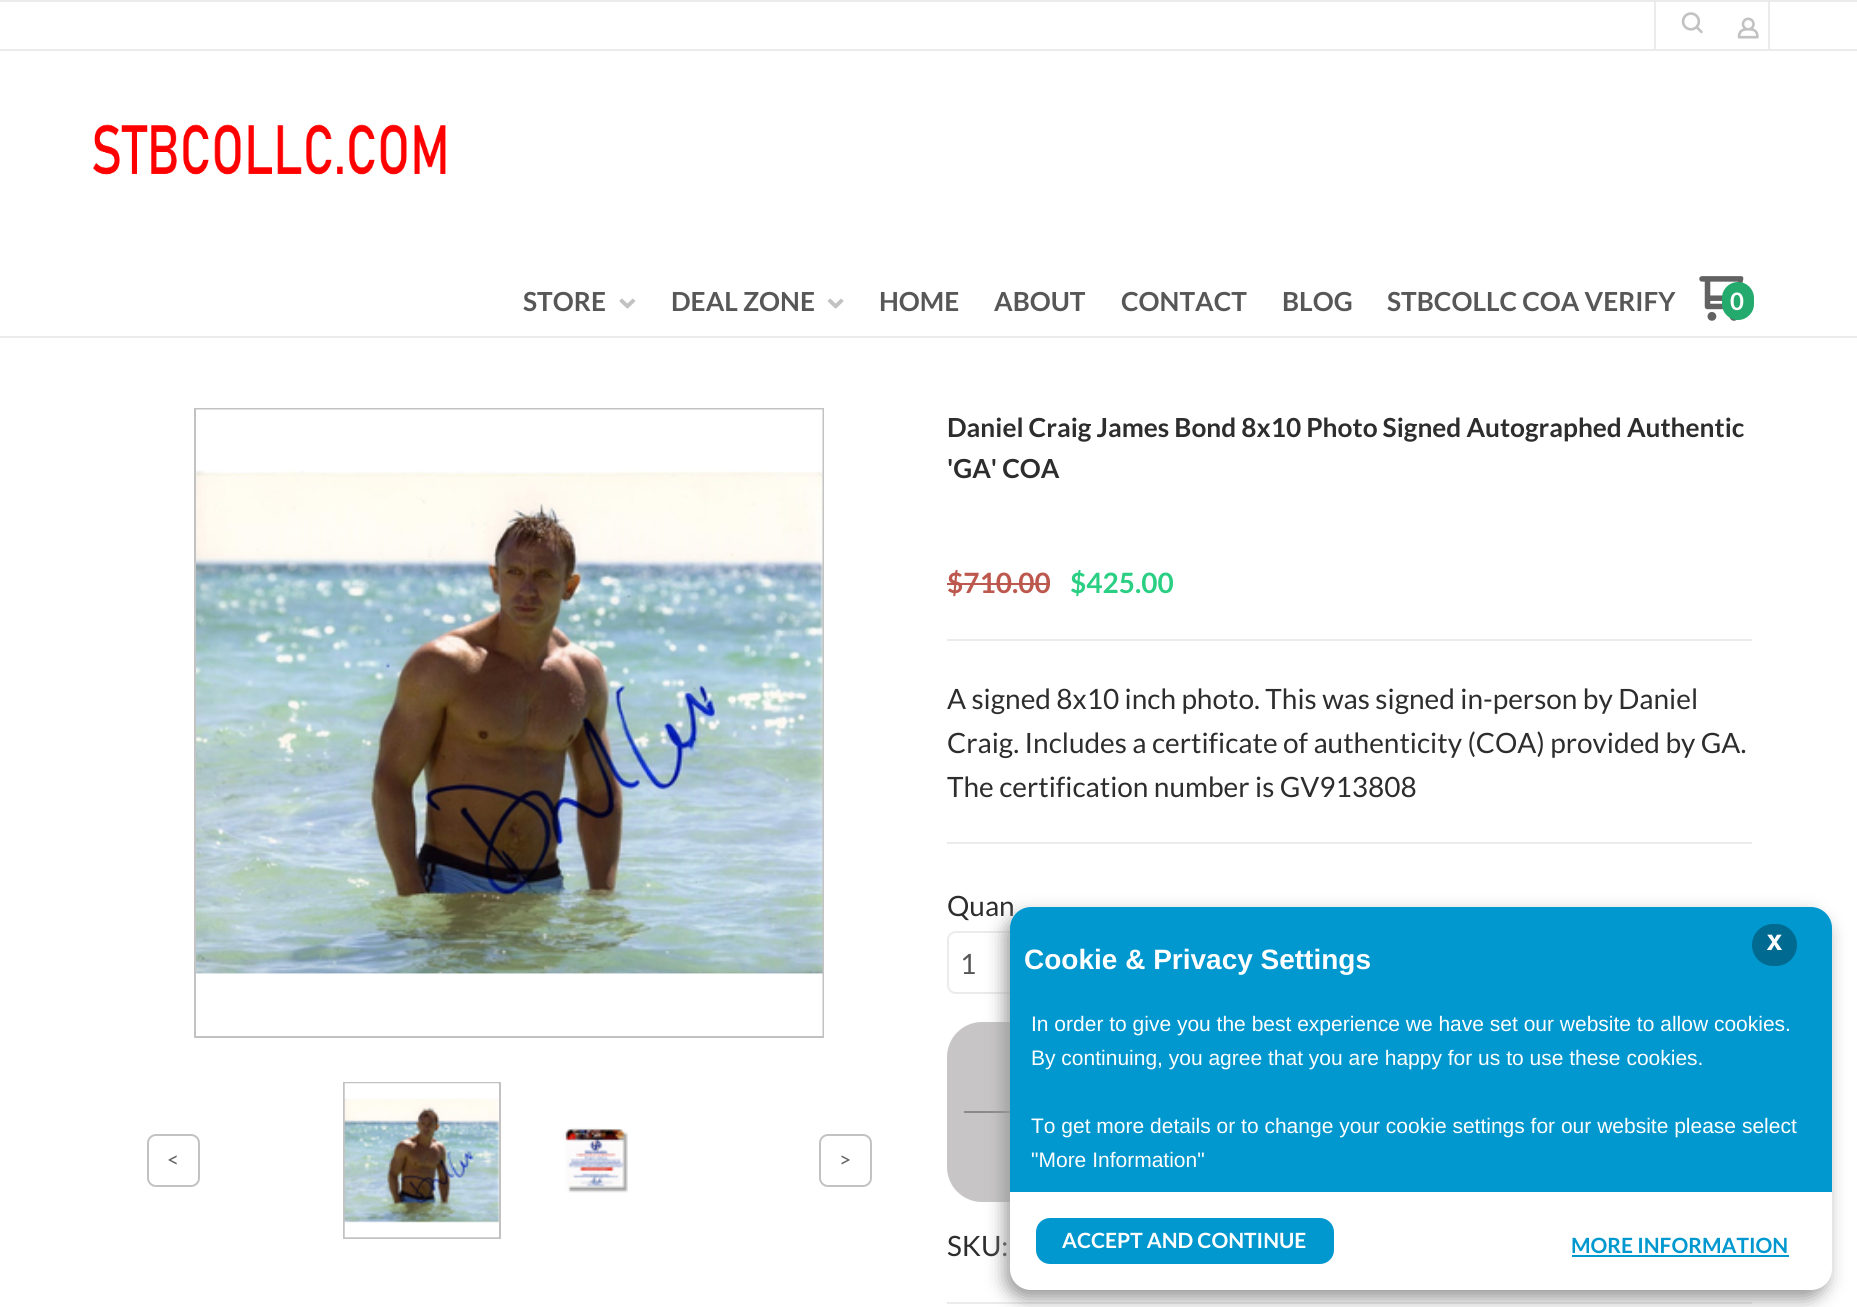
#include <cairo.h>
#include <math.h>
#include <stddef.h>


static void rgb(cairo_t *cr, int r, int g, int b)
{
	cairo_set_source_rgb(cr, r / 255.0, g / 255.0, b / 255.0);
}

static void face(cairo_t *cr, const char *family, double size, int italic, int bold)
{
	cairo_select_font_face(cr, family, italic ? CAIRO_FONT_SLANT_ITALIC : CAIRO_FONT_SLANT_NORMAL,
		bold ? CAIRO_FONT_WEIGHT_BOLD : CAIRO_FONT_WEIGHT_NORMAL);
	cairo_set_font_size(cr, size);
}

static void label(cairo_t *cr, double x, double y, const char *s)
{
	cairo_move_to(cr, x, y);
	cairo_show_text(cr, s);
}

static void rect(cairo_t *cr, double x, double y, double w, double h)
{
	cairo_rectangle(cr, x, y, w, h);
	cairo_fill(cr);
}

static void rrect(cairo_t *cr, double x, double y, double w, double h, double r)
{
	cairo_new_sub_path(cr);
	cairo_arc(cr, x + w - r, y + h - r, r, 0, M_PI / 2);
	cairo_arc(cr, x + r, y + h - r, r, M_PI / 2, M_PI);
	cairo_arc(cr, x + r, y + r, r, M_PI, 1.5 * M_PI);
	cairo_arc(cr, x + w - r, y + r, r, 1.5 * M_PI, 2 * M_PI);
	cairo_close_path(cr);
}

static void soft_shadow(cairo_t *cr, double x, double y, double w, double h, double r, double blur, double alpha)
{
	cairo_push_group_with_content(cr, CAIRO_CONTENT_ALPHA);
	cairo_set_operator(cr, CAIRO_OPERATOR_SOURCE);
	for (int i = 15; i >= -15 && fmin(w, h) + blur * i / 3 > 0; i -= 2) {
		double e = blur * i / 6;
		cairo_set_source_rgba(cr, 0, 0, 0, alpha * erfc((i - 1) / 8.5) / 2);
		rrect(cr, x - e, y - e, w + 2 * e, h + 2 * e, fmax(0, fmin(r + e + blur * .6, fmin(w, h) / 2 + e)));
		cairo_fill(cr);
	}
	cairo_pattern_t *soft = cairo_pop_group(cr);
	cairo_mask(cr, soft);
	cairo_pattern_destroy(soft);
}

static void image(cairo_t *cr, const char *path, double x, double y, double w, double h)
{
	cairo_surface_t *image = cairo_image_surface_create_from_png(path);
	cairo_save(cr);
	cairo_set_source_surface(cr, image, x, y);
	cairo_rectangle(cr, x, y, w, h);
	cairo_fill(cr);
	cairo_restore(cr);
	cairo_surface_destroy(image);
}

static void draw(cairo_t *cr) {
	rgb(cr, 255, 255, 255);
	cairo_paint(cr);
	rgb(cr, 235, 235, 235);
	rect(cr, 0, 0, 1857, 2);
	rect(cr, 1654, 2, 2, 47);
	image(cr, "image0.png", 1681, 12, 22, 22);
	rect(cr, 1768, 2, 2, 47);
	image(cr, "image1.png", 1737, 17, 22, 22);
	rect(cr, 0, 49, 1857, 2);
	rect(cr, 0, 336, 1857, 2);
	image(cr, "image2.png", 93, 124, 353, 51);
	face(cr, "Lato", 26.25, 0, 1);
	rgb(cr, 87, 87, 87);
	label(cr, 523, 311, "STORE");
	image(cr, "image3.png", 619, 298, 17, 11);
	label(cr, 671, 311, "DEAL ZONE");
	image(cr, "image4.png", 827, 298, 17, 11);
	label(cr, 879, 311, "HOME");
	label(cr, 994, 311, "ABOUT");
	label(cr, 1121, 311, "CONTACT");
	label(cr, 1282, 311, "BLOG");
	label(cr, 1387, 311, "STBCOLLC COA VERIFY");
	image(cr, "image5.png", 1699, 276, 45, 45);
	rgb(cr, 36, 170, 109);
	rrect(cr, 1722, 282, 32, 38, 16);
	cairo_fill(cr);
	face(cr, "Lato", 24, 0, 1);
	rgb(cr, 255, 255, 255);
	label(cr, 1730, 310, "0");
	cairo_rectangle(cr, 195, 409, 628, 628);
	rgb(cr, 194, 194, 194);
	cairo_stroke(cr);
	image(cr, "image6.png", 196, 409, 627, 627);
	rrect(cr, 148, 1135, 51, 51, 8);
	cairo_stroke(cr);
	face(cr, "Lato", 21, 0, 0);
	rgb(cr, 98, 98, 98);
	label(cr, 167, 1167, "<");
	cairo_rectangle(cr, 344, 1083, 156, 155);
	rgb(cr, 194, 194, 194);
	cairo_stroke(cr);
	image(cr, "image7.png", 344, 1083, 155, 155);
	image(cr, "image8.png", 563, 1127, 65, 66);
	rrect(cr, 820, 1135, 51, 51, 8);
	cairo_stroke(cr);
	rgb(cr, 98, 98, 98);
	label(cr, 839, 1167, ">");
	face(cr, "Lato", 26.25, 0, 1);
	rgb(cr, 45, 45, 45);
	label(cr, 947, 437, "Daniel Craig James Bond 8x10 Photo Signed Autographed Authentic");
	label(cr, 947, 478, "'GA' COA");
	rgb(cr, 235, 235, 235);
	rect(cr, 947, 639, 805, 2);
	face(cr, "Lato", 28, 0, 1);
	rgb(cr, 189, 88, 79);
	label(cr, 947, 593, "$710.00");
	rect(cr, 947, 583, 103, 2);
	rgb(cr, 43, 207, 132);
	label(cr, 1070, 593, "$425.00");
	rgb(cr, 235, 235, 235);
	rect(cr, 947, 842, 805, 2);
	face(cr, "Lato", 28, 0, 0);
	rgb(cr, 45, 45, 45);
	label(cr, 947, 709, "A signed 8x10 inch photo. This was signed in-person by Daniel");
	label(cr, 947, 753, "Craig. Includes a certificate of authenticity (COA) provided by GA.");
	label(cr, 947, 797, "The certification number is GV913808");
	label(cr, 947, 916, "Quan");
	rrect(cr, 948, 932, 173, 61, 8);
	rgb(cr, 235, 235, 235);
	cairo_stroke(cr);
	rgb(cr, 87, 87, 87);
	label(cr, 960, 974, "1");
	rgb(cr, 199, 197, 197);
	rrect(cr, 947, 1022, 805, 180, 35);
	cairo_fill(cr);
	rgb(cr, 139, 138, 138);
	rect(cr, 964, 1111, 46, 2);
	rgb(cr, 235, 235, 235);
	rect(cr, 947, 1302, 805, 2);
	rgb(cr, 45, 45, 45);
	label(cr, 947, 1256, "SKU:");
	rgb(cr, 153, 153, 153);
	soft_shadow(cr, 1005, 915, 822, 384, 21, 9, 1);
	rgb(cr, 255, 255, 255);
	rrect(cr, 1010, 907, 822, 383, 21);
	cairo_fill(cr);
	rgb(cr, 0, 152, 207);
	cairo_new_path(cr);
	cairo_move_to(cr, 1031, 907);
	cairo_line_to(cr, 1811, 907);
	cairo_curve_to(cr, 1822.5, 907, 1832, 916.5, 1832, 928);
	cairo_line_to(cr, 1832, 1192);
	cairo_line_to(cr, 1010, 1192);
	cairo_line_to(cr, 1010, 928);
	cairo_curve_to(cr, 1010, 916.5, 1019.5, 907, 1031, 907);
	cairo_close_path(cr);
	cairo_fill(cr);
	rgb(cr, 0, 106, 145);
	rrect(cr, 1752, 924, 45, 42, 21);
	cairo_fill(cr);
	face(cr, "DejaVu Sans Mono", 28, 0, 1);
	rgb(cr, 255, 255, 255);
	label(cr, 1766, 950, "x");
	face(cr, "Liberation Sans", 28, 0, 1);
	label(cr, 1024, 969, "Cookie & Privacy Settings");
	face(cr, "Liberation Sans", 21, 0, 0);
	label(cr, 1031, 1031, "In order to give you the best experience we have set our website to allow cookies.");
	label(cr, 1031, 1065, "By continuing, you agree that you are happy for us to use these cookies.");
	label(cr, 1031, 1133, "To get more details or to change your cookie settings for our website please select");
	label(cr, 1031, 1167, "\"More Information\"");
	rgb(cr, 0, 152, 207);
	rrect(cr, 1036, 1218, 298, 46, 14);
	cairo_fill(cr);
	face(cr, "Lato", 21, 0, 1);
	rgb(cr, 255, 255, 255);
	label(cr, 1062, 1248, "ACCEPT AND CONTINUE");
	rgb(cr, 0, 152, 207);
	label(cr, 1571, 1253, "MORE INFORMATION");
	rect(cr, 1572, 1255, 217, 2);
}

int main(void) {
	cairo_surface_t *surface = cairo_image_surface_create(CAIRO_FORMAT_RGB24, 1857, 1307);
	cairo_t *cr = cairo_create(surface);
	cairo_font_options_t *options = cairo_font_options_create();
	cairo_font_options_set_hint_metrics(options, CAIRO_HINT_METRICS_OFF);
	cairo_font_options_set_hint_style(options, CAIRO_HINT_STYLE_NONE);
	cairo_set_font_options(cr, options);
	cairo_set_miter_limit(cr, 4);
	draw(cr);
	cairo_surface_write_to_png(surface, "render.png");
	cairo_font_options_destroy(options);
	cairo_destroy(cr);
	cairo_surface_destroy(surface);
	return 0;
}
